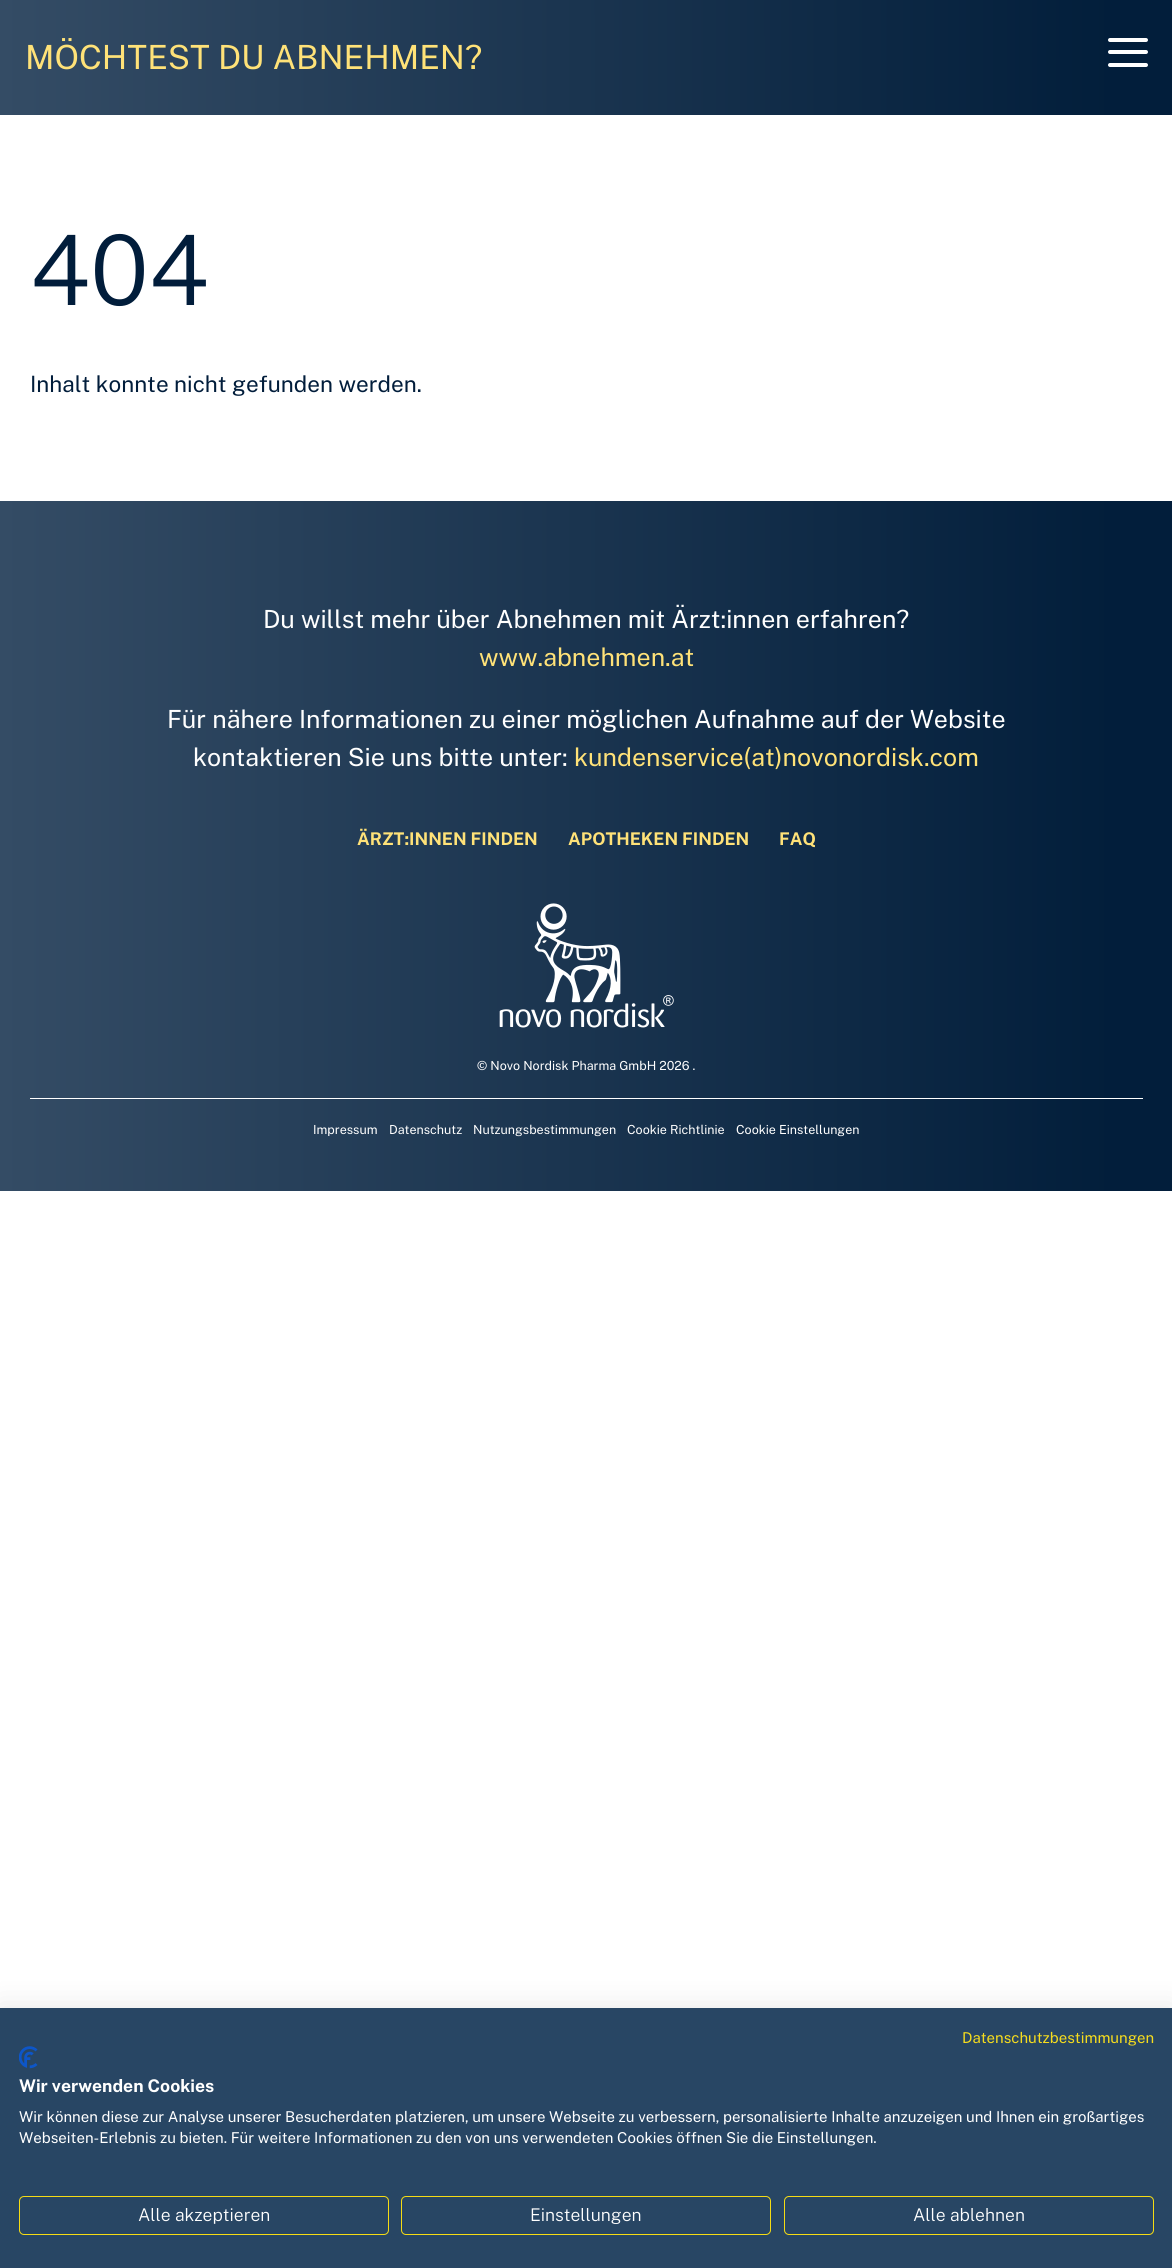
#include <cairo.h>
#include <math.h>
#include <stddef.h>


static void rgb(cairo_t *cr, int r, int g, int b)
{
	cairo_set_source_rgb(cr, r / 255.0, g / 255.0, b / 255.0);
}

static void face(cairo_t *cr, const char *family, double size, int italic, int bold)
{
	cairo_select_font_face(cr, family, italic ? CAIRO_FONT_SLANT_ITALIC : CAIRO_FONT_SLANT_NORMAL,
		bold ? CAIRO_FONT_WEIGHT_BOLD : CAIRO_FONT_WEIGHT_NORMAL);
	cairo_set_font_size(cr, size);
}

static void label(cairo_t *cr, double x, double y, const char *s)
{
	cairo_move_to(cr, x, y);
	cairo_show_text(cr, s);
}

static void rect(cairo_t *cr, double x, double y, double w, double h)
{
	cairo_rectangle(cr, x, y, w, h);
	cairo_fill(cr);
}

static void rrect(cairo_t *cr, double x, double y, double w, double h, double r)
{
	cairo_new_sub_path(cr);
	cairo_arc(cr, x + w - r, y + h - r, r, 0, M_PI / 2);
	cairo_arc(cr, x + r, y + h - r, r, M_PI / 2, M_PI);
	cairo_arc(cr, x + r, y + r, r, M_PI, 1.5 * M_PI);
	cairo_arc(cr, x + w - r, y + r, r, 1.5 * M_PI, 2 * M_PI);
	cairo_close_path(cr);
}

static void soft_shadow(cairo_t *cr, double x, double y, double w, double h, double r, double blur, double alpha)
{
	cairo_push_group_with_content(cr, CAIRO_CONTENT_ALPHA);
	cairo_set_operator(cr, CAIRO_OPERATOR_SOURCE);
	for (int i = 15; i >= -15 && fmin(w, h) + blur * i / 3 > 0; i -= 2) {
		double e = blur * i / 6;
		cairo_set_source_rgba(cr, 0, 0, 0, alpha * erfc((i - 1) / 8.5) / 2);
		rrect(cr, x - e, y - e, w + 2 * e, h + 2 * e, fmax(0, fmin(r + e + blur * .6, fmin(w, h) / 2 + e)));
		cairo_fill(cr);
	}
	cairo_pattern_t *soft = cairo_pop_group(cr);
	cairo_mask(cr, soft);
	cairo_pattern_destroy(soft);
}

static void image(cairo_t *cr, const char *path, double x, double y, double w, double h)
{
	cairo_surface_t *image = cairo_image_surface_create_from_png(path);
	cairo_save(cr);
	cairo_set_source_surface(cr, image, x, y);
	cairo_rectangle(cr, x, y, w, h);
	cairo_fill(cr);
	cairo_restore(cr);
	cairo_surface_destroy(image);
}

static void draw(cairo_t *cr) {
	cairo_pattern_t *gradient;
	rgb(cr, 255, 255, 255);
	cairo_paint(cr);
	gradient = cairo_pattern_create_linear(0, 58, 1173, 57);
	cairo_pattern_add_color_stop_rgba(gradient, 0, 0.204, 0.298, 0.396, 1);
	cairo_pattern_add_color_stop_rgba(gradient, 0.95, 0.008, 0.118, 0.231, 1);
	cairo_set_source(cr, gradient);
	cairo_pattern_destroy(gradient);
	rect(cr, 0, 0, 1172, 115);
	face(cr, "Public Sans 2 Thin", 33.3, 0, 0);
	rgb(cr, 255, 226, 120);
	label(cr, 25, 69, "MÖCHTEST DU ABNEHMEN?");
	rgb(cr, 255, 255, 255);
	rrect(cr, 1108, 38, 40, 4, 2);
	cairo_fill(cr);
	rrect(cr, 1108, 50, 40, 4, 2);
	cairo_fill(cr);
	rrect(cr, 1108, 63, 40, 4, 2);
	cairo_fill(cr);
	face(cr, "Public Sans Thin", 97, 0, 0);
	rgb(cr, 1, 29, 59);
	label(cr, 30, 305, "404");
	face(cr, "Public Sans 2 Thin", 22.5, 0, 0);
	label(cr, 30, 392, "Inhalt konnte nicht gefunden werden.");
	gradient = cairo_pattern_create_linear(0, 846, 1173, 846);
	cairo_pattern_add_color_stop_rgba(gradient, 0, 0.204, 0.298, 0.396, 1);
	cairo_pattern_add_color_stop_rgba(gradient, 0.95, 0.008, 0.118, 0.231, 1);
	cairo_set_source(cr, gradient);
	cairo_pattern_destroy(gradient);
	rect(cr, 0, 501, 1172, 690);
	face(cr, "Public Sans 2 Thin", 25, 0, 0);
	rgb(cr, 255, 255, 255);
	label(cr, 263, 628, "Du willst mehr über Abnehmen mit Ärzt:innen erfahren?");
	rgb(cr, 255, 226, 120);
	label(cr, 479, 666, "www.abnehmen.at");
	rgb(cr, 255, 255, 255);
	label(cr, 167, 728, "Für nähere Informationen zu einer möglichen Aufnahme auf der Website");
	label(cr, 193, 766, "kontaktieren Sie uns bitte unter:");
	rgb(cr, 255, 226, 120);
	label(cr, 574, 766, "kundenservice(at)novonordisk.com");
	face(cr, "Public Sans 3 Thin", 17.5, 0, 0);
	label(cr, 357, 845, "ÄRZT:INNEN FINDEN");
	label(cr, 568, 845, "APOTHEKEN FINDEN");
	label(cr, 779, 845, "FAQ");
	image(cr, "image0.png", 499, 903, 175, 125);
	face(cr, "Public Sans 2 Thin", 12.5, 0, 0);
	rgb(cr, 255, 255, 255);
	label(cr, 477, 1070, "© Novo Nordisk Pharma GmbH 2026 .");
	rect(cr, 30, 1098, 1113, 1);
	label(cr, 313, 1134, "Impressum");
	label(cr, 389, 1134, "Datenschutz");
	label(cr, 473, 1134, "Nutzungsbestimmungen");
	label(cr, 627, 1134, "Cookie Richtlinie");
	label(cr, 736, 1134, "Cookie Einstellungen");
	rgb(cr, 0, 0, 0);
	soft_shadow(cr, 0, 2008, 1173, 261, 0, 15, 0.1);
	rgb(cr, 40, 70, 100);
	rect(cr, 0, 2008, 1172, 260);
	face(cr, "Public Sans 2 Thin", 15, 0, 0);
	rgb(cr, 246, 220, 29);
	label(cr, 962, 2043, "Datenschutzbestimmungen");
	image(cr, "image1.png", 19, 2046, 19, 23);
	face(cr, "Public Sans 3 Thin", 17.5, 0, 0);
	rgb(cr, 255, 255, 255);
	label(cr, 19, 2092, "Wir verwenden Cookies");
	face(cr, "Public Sans 2 Thin", 15, 0, 0);
	label(cr, 19, 2122, "Wir können diese zur Analyse unserer Besucherdaten platzieren, um unsere Webseite zu verbessern, personalisierte Inhalte anzuzeigen und Ihnen ein großartiges");
	label(cr, 19, 2143, "Webseiten-Erlebnis zu bieten. Für weitere Informationen zu den von uns verwendeten Cookies öffnen Sie die Einstellungen.");
	rrect(cr, 19.5, 2196.5, 369, 38, 4.5);
	rgb(cr, 246, 220, 20);
	cairo_set_line_width(cr, 1);
	cairo_stroke(cr);
	face(cr, "Public Sans Thin", 17.5, 0, 0);
	rgb(cr, 255, 255, 255);
	label(cr, 138, 2221, "Alle akzeptieren");
	rrect(cr, 401.5, 2196.5, 369, 38, 4.5);
	rgb(cr, 246, 220, 20);
	cairo_stroke(cr);
	rgb(cr, 255, 255, 255);
	label(cr, 530, 2221, "Einstellungen");
	rrect(cr, 784.5, 2196.5, 369, 38, 4.5);
	rgb(cr, 246, 220, 20);
	cairo_stroke(cr);
	rgb(cr, 255, 255, 255);
	label(cr, 913, 2221, "Alle ablehnen");
}

int main(void) {
	cairo_surface_t *surface = cairo_image_surface_create(CAIRO_FORMAT_RGB24, 1172, 2268);
	cairo_t *cr = cairo_create(surface);
	cairo_font_options_t *options = cairo_font_options_create();
	cairo_font_options_set_hint_metrics(options, CAIRO_HINT_METRICS_OFF);
	cairo_font_options_set_hint_style(options, CAIRO_HINT_STYLE_NONE);
	cairo_set_font_options(cr, options);
	cairo_set_miter_limit(cr, 4);
	draw(cr);
	cairo_surface_write_to_png(surface, "render.png");
	cairo_font_options_destroy(options);
	cairo_destroy(cr);
	cairo_surface_destroy(surface);
	return 0;
}
